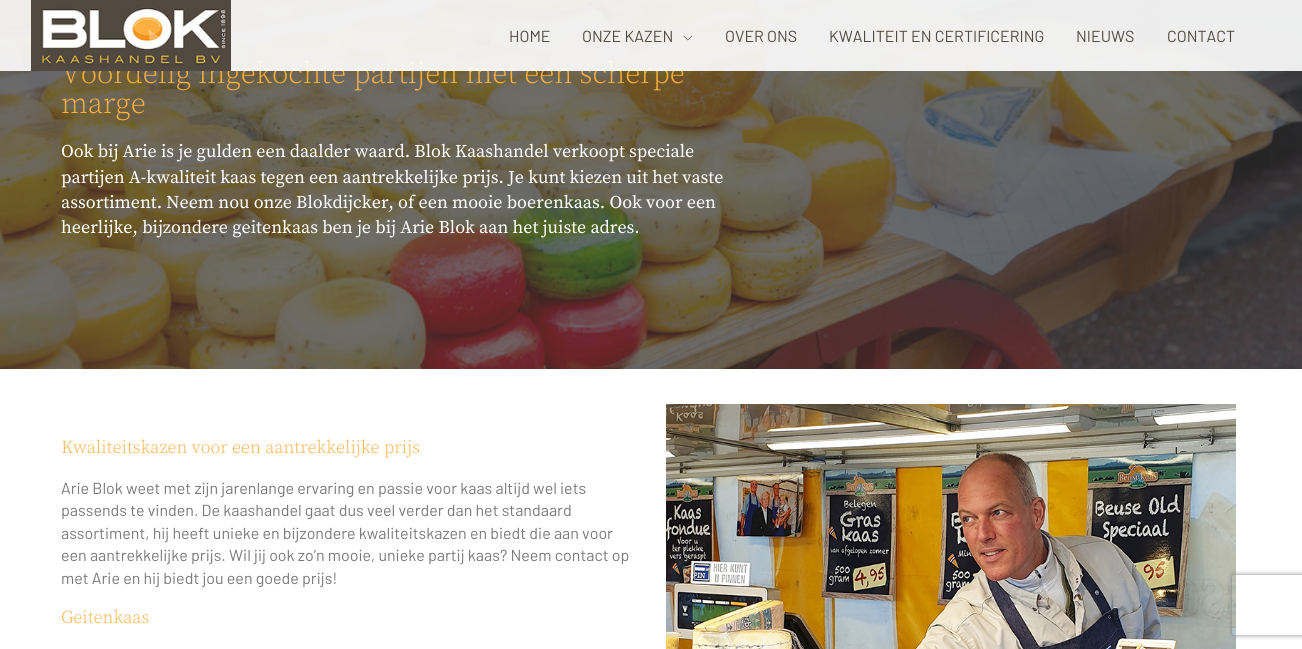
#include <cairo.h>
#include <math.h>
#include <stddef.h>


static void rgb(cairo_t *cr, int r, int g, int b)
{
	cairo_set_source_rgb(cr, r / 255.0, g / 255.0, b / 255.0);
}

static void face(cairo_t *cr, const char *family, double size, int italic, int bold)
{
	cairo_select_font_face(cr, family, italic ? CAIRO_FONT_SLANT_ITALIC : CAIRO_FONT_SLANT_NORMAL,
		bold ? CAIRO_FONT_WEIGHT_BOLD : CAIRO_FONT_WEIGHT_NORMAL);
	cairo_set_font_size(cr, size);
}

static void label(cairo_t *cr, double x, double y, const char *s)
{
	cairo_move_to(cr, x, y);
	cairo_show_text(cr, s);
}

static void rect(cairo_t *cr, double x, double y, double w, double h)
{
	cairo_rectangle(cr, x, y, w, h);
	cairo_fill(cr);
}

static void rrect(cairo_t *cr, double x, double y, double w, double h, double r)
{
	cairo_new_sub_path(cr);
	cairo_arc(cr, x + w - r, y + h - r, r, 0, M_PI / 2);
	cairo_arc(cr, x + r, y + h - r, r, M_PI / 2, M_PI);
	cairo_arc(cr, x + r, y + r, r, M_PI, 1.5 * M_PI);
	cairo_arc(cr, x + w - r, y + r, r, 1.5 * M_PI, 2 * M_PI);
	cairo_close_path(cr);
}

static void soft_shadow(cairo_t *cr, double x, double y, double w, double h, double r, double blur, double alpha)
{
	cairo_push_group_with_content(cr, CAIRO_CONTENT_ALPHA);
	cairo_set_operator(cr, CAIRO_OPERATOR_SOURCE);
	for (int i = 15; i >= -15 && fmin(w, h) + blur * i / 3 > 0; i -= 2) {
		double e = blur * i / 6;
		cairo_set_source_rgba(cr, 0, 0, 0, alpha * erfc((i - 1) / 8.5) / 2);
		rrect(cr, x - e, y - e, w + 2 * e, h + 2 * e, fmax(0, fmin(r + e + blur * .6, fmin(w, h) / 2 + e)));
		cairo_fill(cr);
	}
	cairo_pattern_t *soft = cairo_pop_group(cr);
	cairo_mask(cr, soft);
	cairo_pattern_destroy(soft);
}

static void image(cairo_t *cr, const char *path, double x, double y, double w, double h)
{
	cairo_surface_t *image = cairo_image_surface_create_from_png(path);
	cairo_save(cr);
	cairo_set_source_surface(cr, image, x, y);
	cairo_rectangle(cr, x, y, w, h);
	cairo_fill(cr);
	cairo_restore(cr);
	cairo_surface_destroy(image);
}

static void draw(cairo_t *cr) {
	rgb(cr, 255, 255, 255);
	cairo_paint(cr);
	image(cr, "image2.png", 0, 0, 1302, 369);
	face(cr, "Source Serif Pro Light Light", 30, 0, 0);
	rgb(cr, 252, 176, 64);
	label(cr, 61, 83, "Voordelig ingekochte partijen met een scherpe");
	cairo_set_source_rgba(cr, 1, 1, 1, 0.9);
	rect(cr, 0, 0, 1302, 71);
	image(cr, "image0.png", 31, 0, 200, 71);
	face(cr, "Barlow", 16, 0, 0);
	rgb(cr, 82, 74, 64);
	label(cr, 509, 42, "HOME");
	label(cr, 582, 42, "ONZE KAZEN");
	image(cr, "image1.png", 683, 35, 9, 6);
	label(cr, 725, 42, "OVER ONS");
	label(cr, 829, 42, "KWALITEIT EN CERTIFICERING");
	label(cr, 1076, 42, "NIEUWS");
	label(cr, 1167, 42, "CONTACT");
	face(cr, "Source Serif Pro Light Light", 30, 0, 0);
	rgb(cr, 252, 176, 64);
	label(cr, 61, 113, "marge");
	face(cr, "Source Serif Pro", 18, 0, 0);
	rgb(cr, 255, 255, 255);
	label(cr, 61, 157, "Ook bij Arie is je gulden een daalder waard. Blok Kaashandel verkoopt speciale");
	label(cr, 61, 183, "partijen A-kwaliteit kaas tegen een aantrekkelijke prijs. Je kunt kiezen uit het vaste");
	label(cr, 61, 208, "assortiment. Neem nou onze Blokdijcker, of een mooie boerenkaas. Ook voor een");
	label(cr, 61, 233, "heerlijke, bijzondere geitenkaas ben je bij Arie Blok aan het juiste adres.");
	face(cr, "Source Serif Pro Light Light", 18, 0, 0);
	rgb(cr, 252, 176, 64);
	label(cr, 61, 453, "Kwaliteitskazen voor een aantrekkelijke prijs");
	face(cr, "Barlow", 16, 0, 0);
	rgb(cr, 122, 122, 122);
	label(cr, 61, 494, "Arie Blok weet met zijn jarenlange ervaring en passie voor kaas altijd wel iets");
	label(cr, 61, 516, "passends te vinden. De kaashandel gaat dus veel verder dan het standaard");
	label(cr, 61, 539, "assortiment, hij heeft unieke en bijzondere kwaliteitskazen en biedt die aan voor");
	label(cr, 61, 561, "een aantrekkelijke prijs. Wil jij ook zo’n mooie, unieke partij kaas? Neem contact op");
	label(cr, 61, 584, "met Arie en hij biedt jou een goede prijs!");
	face(cr, "Source Serif Pro Light Light", 18, 0, 0);
	rgb(cr, 252, 176, 64);
	label(cr, 61, 623, "Geitenkaas");
	image(cr, "image3.png", 666, 404, 570, 245);
	cairo_save(cr);
	cairo_set_fill_rule(cr, CAIRO_FILL_RULE_EVEN_ODD);
	cairo_new_path(cr);
	cairo_move_to(cr, 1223, 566);
	cairo_line_to(cr, 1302, 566);
	cairo_line_to(cr, 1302, 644);
	cairo_line_to(cr, 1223, 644);
	cairo_close_path(cr);
	cairo_move_to(cr, 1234, 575);
	cairo_line_to(cr, 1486, 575);
	cairo_curve_to(cr, 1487, 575, 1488, 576, 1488, 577);
	cairo_line_to(cr, 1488, 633);
	cairo_curve_to(cr, 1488, 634, 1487, 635, 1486, 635);
	cairo_line_to(cr, 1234, 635);
	cairo_curve_to(cr, 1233, 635, 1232, 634, 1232, 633);
	cairo_line_to(cr, 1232, 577);
	cairo_curve_to(cr, 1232, 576, 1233, 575, 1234, 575);
	cairo_close_path(cr);
	cairo_clip(cr);
	rgb(cr, 128, 128, 128);
	soft_shadow(cr, 1232, 575, 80, 60, 2, 2.5, 1);
	cairo_restore(cr);
}

int main(void) {
	cairo_surface_t *surface = cairo_image_surface_create(CAIRO_FORMAT_RGB24, 1302, 649);
	cairo_t *cr = cairo_create(surface);
	cairo_font_options_t *options = cairo_font_options_create();
	cairo_font_options_set_hint_metrics(options, CAIRO_HINT_METRICS_OFF);
	cairo_font_options_set_hint_style(options, CAIRO_HINT_STYLE_NONE);
	cairo_set_font_options(cr, options);
	cairo_set_miter_limit(cr, 4);
	draw(cr);
	cairo_surface_write_to_png(surface, "render.png");
	cairo_font_options_destroy(options);
	cairo_destroy(cr);
	cairo_surface_destroy(surface);
	return 0;
}
